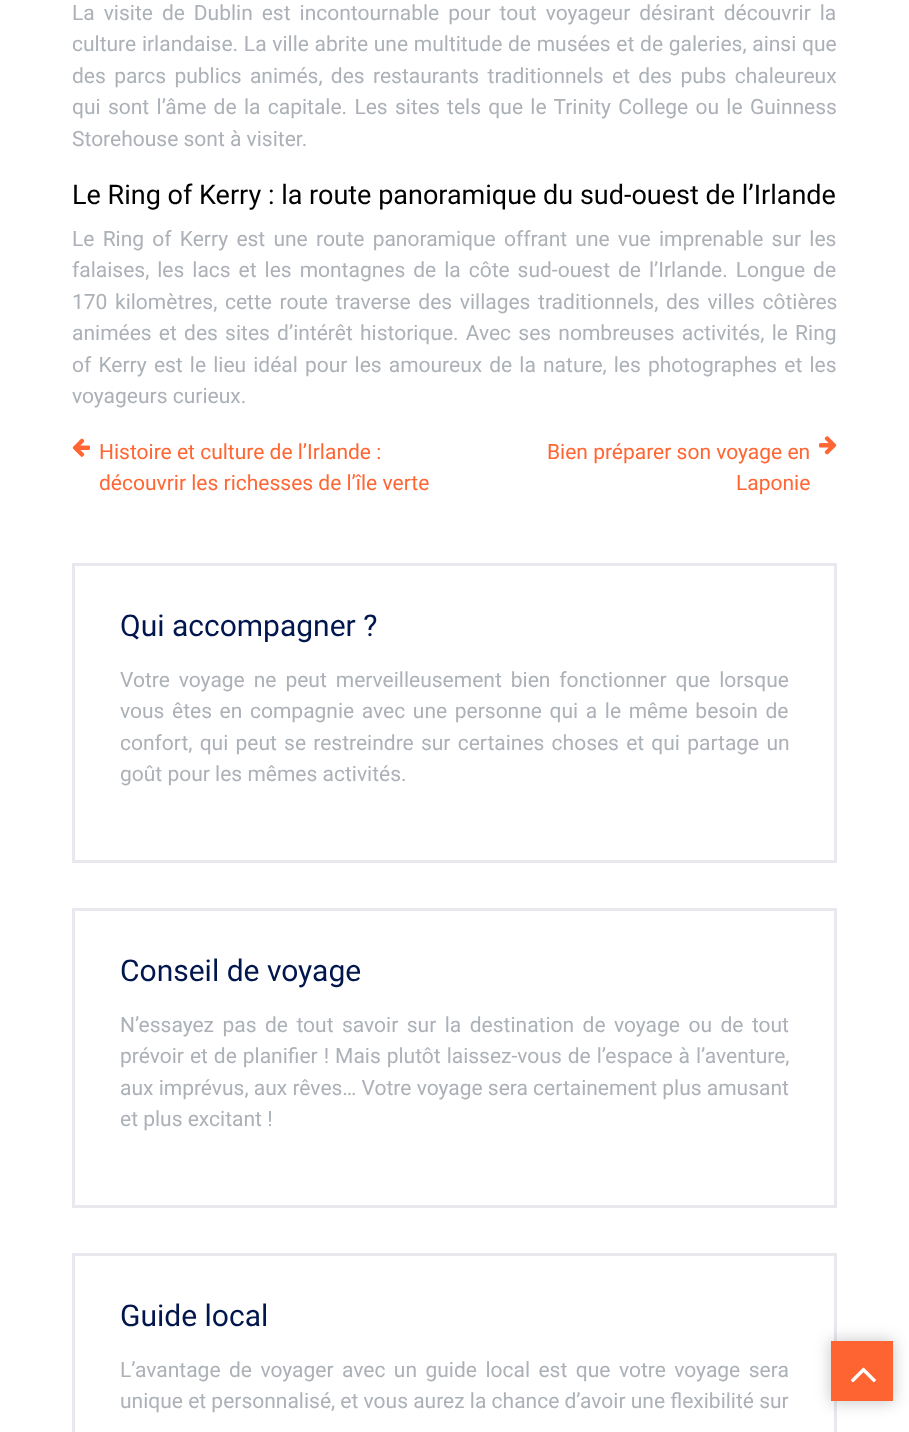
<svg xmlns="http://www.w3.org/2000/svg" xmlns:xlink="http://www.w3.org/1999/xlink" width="909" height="1432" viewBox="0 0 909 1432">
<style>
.cls-1{font:21px Roboto;fill:#acb1b7}
.cls-2{font:27px Roboto;fill:#000000}
.cls-3{font:21px Roboto;fill:#ff6633}
.cls-4{font:30px Roboto;fill:#00164d}
</style>
<rect width="100%" height="100%" fill="#ffffff"/>
<image xlink:href="image0.png" x="72" y="438" width="18" height="19"/>
<image xlink:href="image1.png" x="819" y="436" width="18" height="19"/>
<rect fill="none" stroke="#e7e9ef" stroke-width="3" x="73.5" y="564.5" width="762" height="297"/>
<rect fill="none" stroke="#e7e9ef" stroke-width="3" x="73.5" y="909.5" width="762" height="297"/>
<rect fill="none" stroke="#e7e9ef" stroke-width="3" x="73.5" y="1254.5" width="762" height="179"/>
<rect fill="#000000" fill-opacity="0.2" filter="blur(7.5px)" x="830" y="1340" width="64" height="63"/>
<rect fill="#fe6432" x="831" y="1341" width="62" height="60"/>
<image xlink:href="image2.png" x="851" y="1367" width="25" height="16"/>
<text class="cls-1"><tspan x="72" y="20" word-spacing="3.75">La visite de Dublin est incontournable pour tout voyageur désirant découvrir la</tspan><tspan x="72" y="51" word-spacing="0.5">culture irlandaise. La ville abrite une multitude de musées et de galeries, ainsi que</tspan><tspan x="72" y="83" word-spacing="3.1">des parcs publics animés, des restaurants traditionnels et des pubs chaleureux</tspan><tspan x="72" y="114" word-spacing="2.1">qui sont l’âme de la capitale. Les sites tels que le Trinity College ou le Guinness</tspan><tspan x="72" y="146">Storehouse sont à visiter.</tspan></text>
<text class="cls-2" x="72" y="204">Le Ring of Kerry : la route panoramique du sud-ouest de l’Irlande</text>
<text class="cls-1"><tspan x="72" y="246" word-spacing="3">Le Ring of Kerry est une route panoramique offrant une vue imprenable sur les</tspan><tspan x="72" y="277" word-spacing="2.75">falaises, les lacs et les montagnes de la côte sud-ouest de l’Irlande. Longue de</tspan><tspan x="72" y="309" word-spacing="2.4">170 kilomètres, cette route traverse des villages traditionnels, des villes côtières</tspan><tspan x="72" y="340" word-spacing="2">animées et des sites d’intérêt historique. Avec ses nombreuses activités, le Ring</tspan><tspan x="72" y="372" word-spacing="1.9">of Kerry est le lieu idéal pour les amoureux de la nature, les photographes et les</tspan><tspan x="72" y="403">voyageurs curieux.</tspan></text>
<text class="cls-3"><tspan x="99" y="459">Histoire et culture de l’Irlande :</tspan><tspan x="99" y="490">découvrir les richesses de l’île verte</tspan></text>
<text class="cls-3" x="547" y="459">Bien préparer son voyage en</text>
<text class="cls-3" x="736" y="490">Laponie</text>
<text class="cls-4" x="120" y="636">Qui accompagner ?</text>
<text class="cls-1"><tspan x="120" y="687" word-spacing="3.75">Votre voyage ne peut merveilleusement bien fonctionner que lorsque</tspan><tspan x="120" y="718" word-spacing="2.4">vous êtes en compagnie avec une personne qui a le même besoin de</tspan><tspan x="120" y="750" word-spacing="2">confort, qui peut se restreindre sur certaines choses et qui partage un</tspan><tspan x="120" y="781">goût pour les mêmes activités.</tspan></text>
<text class="cls-4" x="120" y="981">Conseil de voyage</text>
<text class="cls-1"><tspan x="120" y="1032" word-spacing="3.25">N’essayez pas de tout savoir sur la destination de voyage ou de tout</tspan><tspan x="120" y="1063" word-spacing="0.75">prévoir et de planifier ! Mais plutôt laissez-vous de l’espace à l’aventure,</tspan><tspan x="120" y="1095">aux imprévus, aux rêves… Votre voyage sera certainement plus amusant</tspan><tspan x="120" y="1126">et plus excitant !</tspan></text>
<text class="cls-4" x="120" y="1326">Guide local</text>
<text class="cls-1"><tspan x="120" y="1377" word-spacing="3.25">L’avantage de voyager avec un guide local est que votre voyage sera</tspan><tspan x="120" y="1408">unique et personnalisé, et vous aurez la chance d’avoir une flexibilité sur</tspan></text>
</svg>
